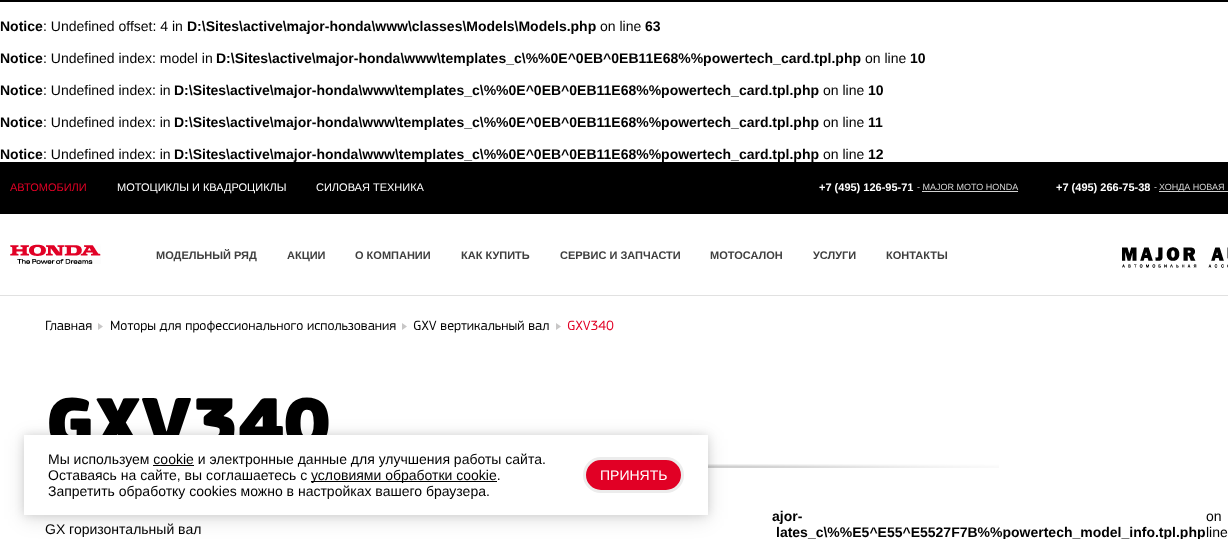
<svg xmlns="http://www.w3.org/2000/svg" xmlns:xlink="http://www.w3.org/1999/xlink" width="1228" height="539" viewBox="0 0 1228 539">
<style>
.cls-1{font:bold 14px Liberation Sans;fill:#000000}
.cls-2{font:14px Liberation Sans;fill:#000000}
.cls-3{font:11px Liberation Sans;fill:#e10025}
.cls-4{font:11px Liberation Sans;fill:#ffffff}
.cls-5{font:bold 11px Liberation Sans;fill:#ffffff}
.cls-6{font:9px Liberation Sans;fill:#d2d2d2}
.cls-7{font:bold 11px Liberation Sans;fill:#3f3f3f}
.cls-8{font:14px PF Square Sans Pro;fill:#000000}
.cls-9{font:14px PF Square Sans Pro;fill:#e10025}
.cls-10{font:800 75px PF Square Sans Pro;fill:#000000}
.cls-11{font:14px Liberation Sans;fill:#ffffff}
</style>
<rect width="100%" height="100%" fill="#ffffff"/>
<rect fill="#000000" x="0" y="0" width="1228" height="2"/>
<rect fill="#000000" x="0" y="162" width="1228" height="52"/>
<rect fill="#d2d2d2" x="922" y="191" width="96" height="1"/>
<rect fill="#d2d2d2" x="1159" y="191" width="69" height="1"/>
<image xlink:href="image2.png" x="708" y="464" width="291" height="4"/>
<rect fill="#000000" fill-opacity="0.12" filter="blur(5px)" x="24" y="435" width="684" height="80"/>
<rect fill="#000000" fill-opacity="0.12" filter="blur(10px)" x="24" y="439" width="684" height="80"/>
<rect fill="#e1e1e1" x="0" y="295" width="1228" height="1"/>
<image xlink:href="image0.png" x="10" y="244" width="91" height="20"/>
<image xlink:href="image1.png" x="1122" y="247" width="106" height="21"/>
<path fill="#c8c7c7" fill-rule="evenodd" d="M98 323V330L103 326.5Z"/>
<path fill="#c8c7c7" fill-rule="evenodd" d="M402 323V330L407 326.5Z"/>
<path fill="#c8c7c7" fill-rule="evenodd" d="M556 323V330L561 326.5Z"/>
<text class="cls-1" x="0" y="31">Notice</text>
<text class="cls-2" x="43" y="31">: Undefined offset: 4 in</text>
<text class="cls-1" x="187" y="31">D:\Sites\active\major-honda\www\classes\Models\Models.php</text>
<text class="cls-2" x="600" y="31">on line</text>
<text class="cls-1" x="645" y="31">63</text>
<text class="cls-1" x="0" y="63">Notice</text>
<text class="cls-2" x="43" y="63">: Undefined index: model in</text>
<text class="cls-1" x="216" y="63">D:\Sites\active\major-honda\www\templates_c\%%0E^0EB^0EB11E68%%powertech_card.tpl.php</text>
<text class="cls-2" x="865" y="63">on line</text>
<text class="cls-1" x="910" y="63">10</text>
<text class="cls-1" x="0" y="95">Notice</text>
<text class="cls-2" x="43" y="95">: Undefined index: in</text>
<text class="cls-1" x="174" y="95">D:\Sites\active\major-honda\www\templates_c\%%0E^0EB^0EB11E68%%powertech_card.tpl.php</text>
<text class="cls-2" x="823" y="95">on line</text>
<text class="cls-1" x="868" y="95">10</text>
<text class="cls-1" x="0" y="127">Notice</text>
<text class="cls-2" x="43" y="127">: Undefined index: in</text>
<text class="cls-1" x="174" y="127">D:\Sites\active\major-honda\www\templates_c\%%0E^0EB^0EB11E68%%powertech_card.tpl.php</text>
<text class="cls-2" x="823" y="127">on line</text>
<text class="cls-1" x="868" y="127">11</text>
<text class="cls-1" x="0" y="159">Notice</text>
<text class="cls-2" x="43" y="159">: Undefined index: in</text>
<text class="cls-1" x="174" y="159">D:\Sites\active\major-honda\www\templates_c\%%0E^0EB^0EB11E68%%powertech_card.tpl.php</text>
<text class="cls-2" x="823" y="159">on line</text>
<text class="cls-1" x="868" y="159">12</text>
<text class="cls-3" x="10" y="191">АВТОМОБИЛИ</text>
<text class="cls-4" x="117" y="191">МОТОЦИКЛЫ И КВАДРОЦИКЛЫ</text>
<text class="cls-4" x="316" y="191">СИЛОВАЯ ТЕХНИКА</text>
<text class="cls-5" x="819" y="191">+7 (495) 126-95-71</text>
<text class="cls-6" x="917" y="190">- MAJOR MOTO HONDA</text>
<text class="cls-5" x="1056" y="191">+7 (495) 266-75-38</text>
<text class="cls-6" x="1154" y="190">-</text>
<text class="cls-6" x="1159" y="190">ХОНДА НОВАЯ</text>
<text class="cls-7" x="156" y="259">МОДЕЛЬНЫЙ РЯД</text>
<text class="cls-7" x="287" y="259">АКЦИИ</text>
<text class="cls-7" x="355" y="259">О КОМПАНИИ</text>
<text class="cls-7" x="461" y="259">КАК КУПИТЬ</text>
<text class="cls-7" x="560" y="259">СЕРВИС И ЗАПЧАСТИ</text>
<text class="cls-7" x="710" y="259">МОТОСАЛОН</text>
<text class="cls-7" x="813" y="259">УСЛУГИ</text>
<text class="cls-7" x="886" y="259">КОНТАКТЫ</text>
<text class="cls-8" x="45" y="330">Главная</text>
<text class="cls-8" x="110" y="330">Моторы для профессионального использования</text>
<text class="cls-8" x="413" y="330">GXV вертикальный вал</text>
<text class="cls-9" x="567" y="330">GXV340</text>
<text class="cls-10" x="45" y="448">GXV340</text>
<rect fill="#ffffff" x="24" y="435" width="684" height="80"/>
<rect fill="#e10025" stroke="#ececec" stroke-width="3" x="584.5" y="458.5" width="98" height="33" rx="16.5"/>
<text class="cls-11" x="600" y="480">ПРИНЯТЬ</text>
<text class="cls-2" x="48" y="496">Запретить обработку cookies можно в настройках вашего браузера.</text>
<rect fill="#000000" x="311" y="481" width="186" height="1"/>
<text class="cls-2" x="311" y="480">условиями обработки cookie.</text>
<text class="cls-2" x="48" y="480">Оставаясь на сайте, вы соглашаетесь с</text>
<rect fill="#000000" x="153" y="465" width="41" height="1"/>
<text class="cls-2" x="48" y="464">Мы используем cookie и электронные данные для улучшения работы сайта.</text>
<text class="cls-2" x="45" y="534">GX горизонтальный вал</text>
<text class="cls-1" x="772" y="521">ajor-</text>
<text class="cls-1" x="776" y="537">lates_c\%%E5^E55^E5527F7B%%powertech_model_info.tpl.php</text>
<text class="cls-2"><tspan x="1206" y="521">on</tspan><tspan x="1206" y="537">line</tspan></text>
</svg>
